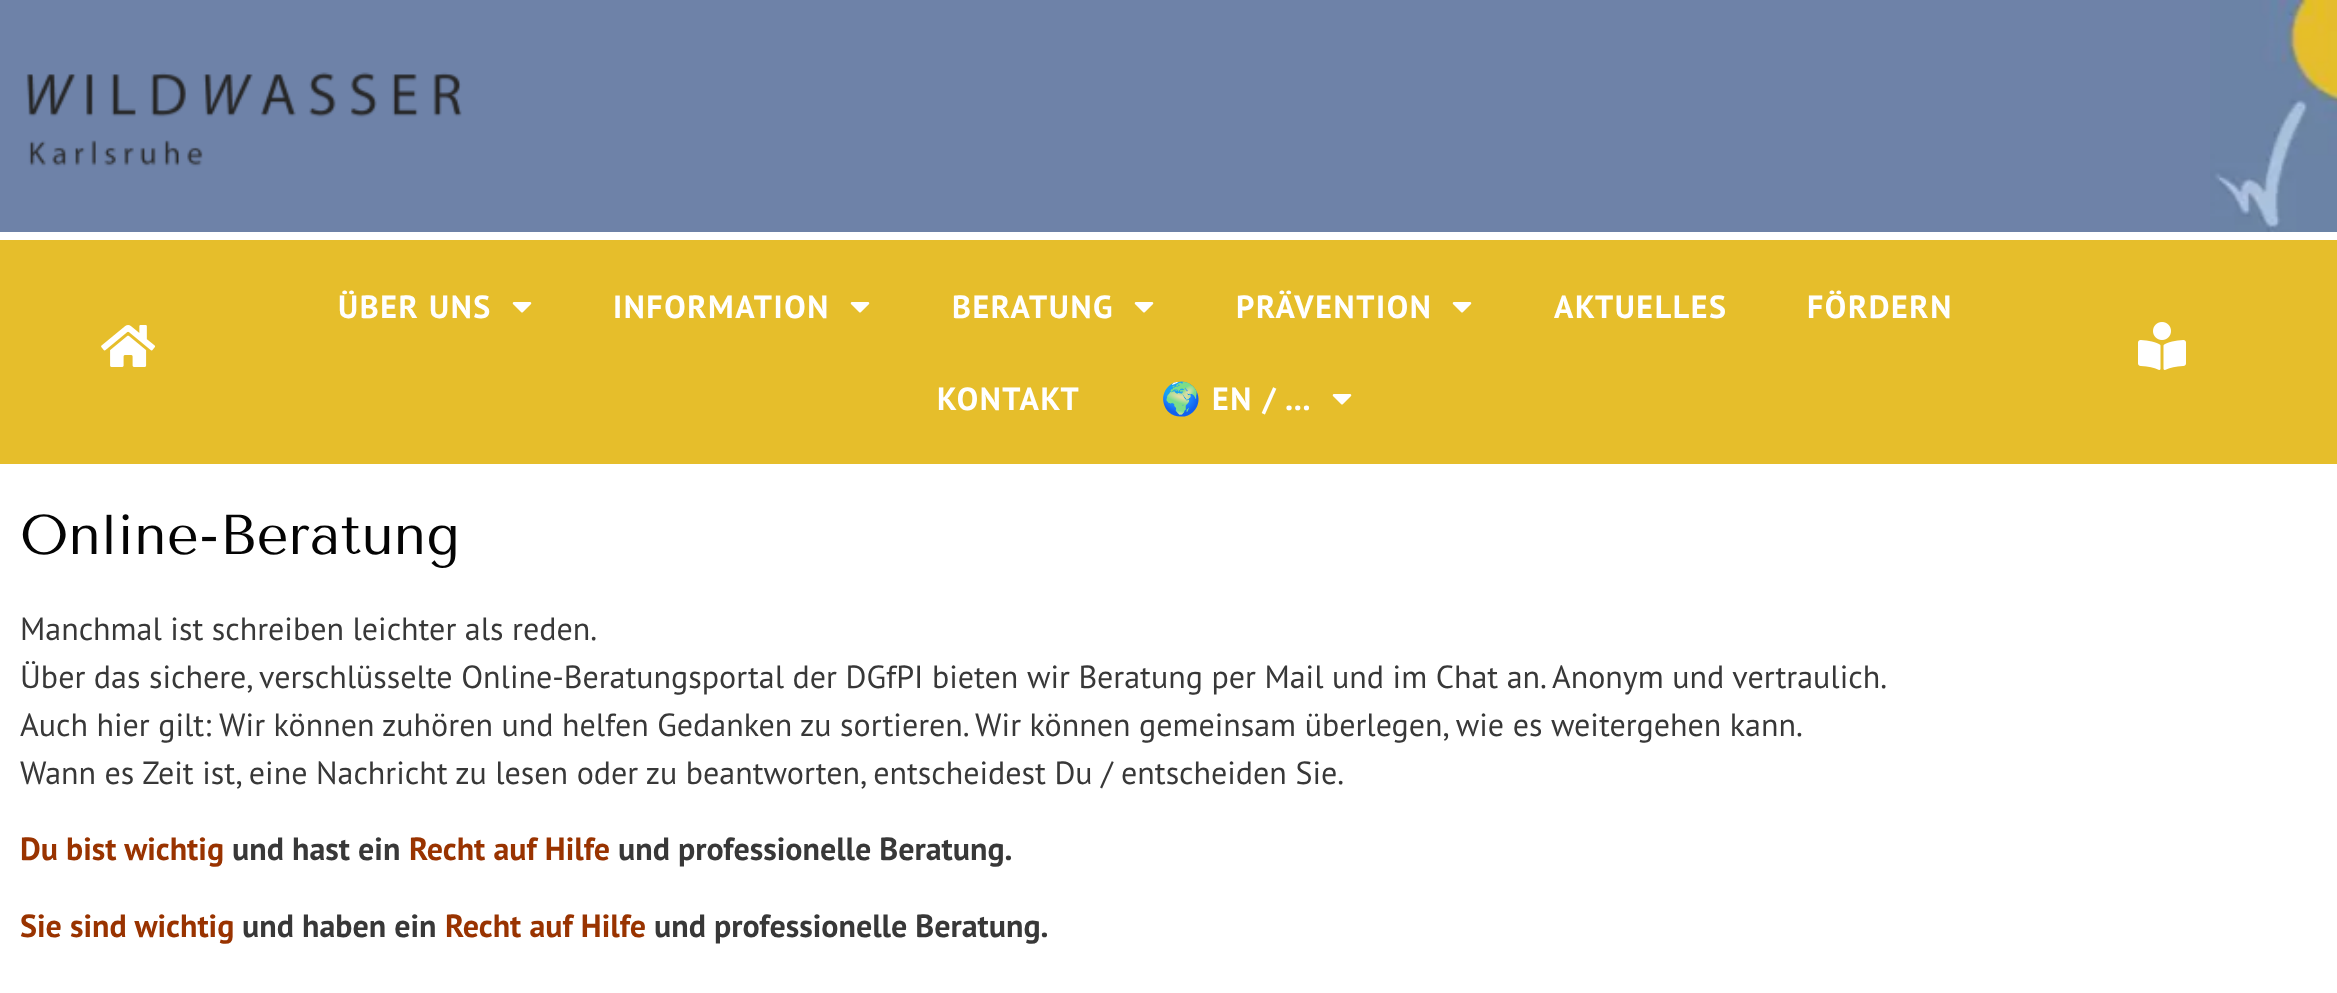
<svg xmlns="http://www.w3.org/2000/svg" xmlns:xlink="http://www.w3.org/1999/xlink" width="2337" height="993" viewBox="0 0 2337 993">
<style>
.cls-1{font:bold 32px PT Sans;letter-spacing:1.6px;fill:#ffffff}
.cls-2{font:bold 32px Noto Color Emoji;letter-spacing:1.6px;fill:#ffffff}
.cls-3{font:56px Tenor Sans;fill:#040404}
.cls-4{font:32px PT Sans;fill:#383838}
.cls-5{font:bold 32px PT Sans;fill:#993300}
.cls-6{font:bold 32px PT Sans;fill:#383838}
</style>
<rect width="100%" height="100%" fill="#ffffff"/>
<rect fill="#6e82a8" x="0" y="0" width="2210" height="232"/>
<image xlink:href="image0.png" x="26" y="72" width="436" height="95"/>
<image xlink:href="image1.png" x="2210" y="0" width="127" height="232"/>
<rect fill="#e6be2b" x="0" y="240" width="2337" height="224"/>
<image xlink:href="image2.png" x="101" y="325" width="55" height="42"/>
<image xlink:href="image3.png" x="512" y="302" width="20" height="11"/>
<image xlink:href="image3.png" x="850" y="302" width="20" height="11"/>
<image xlink:href="image3.png" x="1134" y="302" width="20" height="11"/>
<image xlink:href="image3.png" x="1452" y="302" width="20" height="11"/>
<image xlink:href="image3.png" x="1332" y="394" width="20" height="11"/>
<image xlink:href="image4.png" x="2138" y="322" width="48" height="48"/>
<text class="cls-1" x="338" y="318">ÜBER UNS</text>
<text class="cls-1" x="613" y="318">INFORMATION</text>
<text class="cls-1" x="952" y="318">BERATUNG</text>
<text class="cls-1" x="1236" y="318">PRÄVENTION</text>
<text class="cls-1" x="1554" y="318">AKTUELLES</text>
<text class="cls-1" x="1807" y="318">FÖRDERN</text>
<text class="cls-1" x="937" y="410">KONTAKT</text>
<text class="cls-2" x="1161" y="410">🌍</text>
<text class="cls-1" x="1212" y="410">EN / …</text>
<text class="cls-3" x="20" y="554">Online-Beratung</text>
<text class="cls-4"><tspan x="20" y="640">Manchmal ist schreiben leichter als reden.</tspan><tspan x="20" y="688">Über das sichere, verschlüsselte Online-Beratungsportal der DGfPI bieten wir Beratung per Mail und im Chat an. Anonym und vertraulich.</tspan><tspan x="20" y="736">Auch hier gilt: Wir können zuhören und helfen Gedanken zu sortieren. Wir können gemeinsam überlegen, wie es weitergehen kann.</tspan><tspan x="20" y="784">Wann es Zeit ist, eine Nachricht zu lesen oder zu beantworten, entscheidest Du / entscheiden Sie.</tspan></text>
<text class="cls-5" x="20" y="860">Du bist wichtig</text>
<text class="cls-6" x="232" y="860">und hast ein</text>
<text class="cls-5" x="409" y="860">Recht auf Hilfe</text>
<text class="cls-6" x="618" y="860">und professionelle Beratung.</text>
<text class="cls-5" x="20" y="937">Sie sind wichtig</text>
<text class="cls-6" x="242" y="937">und haben ein</text>
<text class="cls-5" x="445" y="937">Recht auf Hilfe</text>
<text class="cls-6" x="654" y="937">und professionelle Beratung.</text>
</svg>
